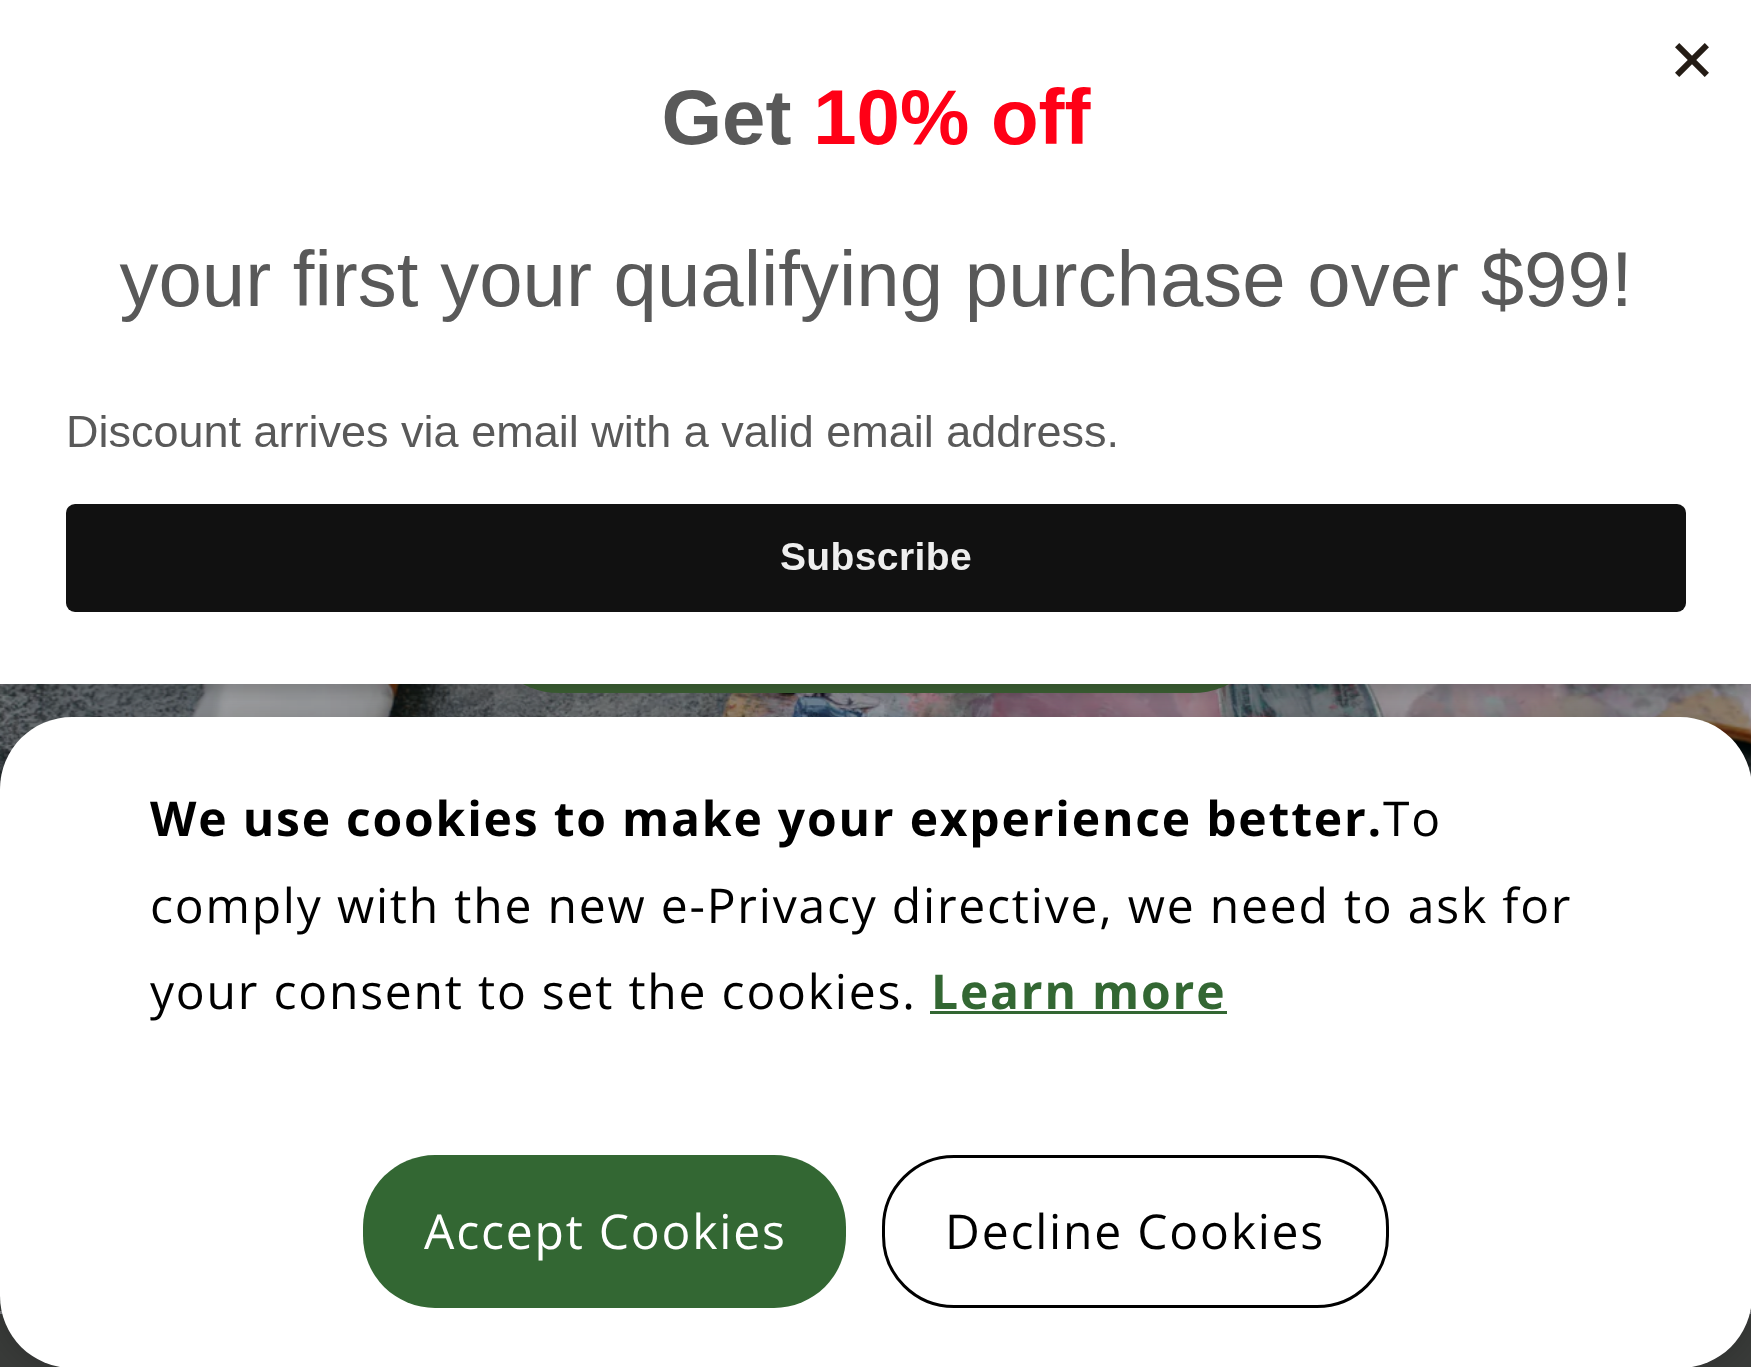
<svg xmlns="http://www.w3.org/2000/svg" xmlns:xlink="http://www.w3.org/1999/xlink" width="1751" height="1367" viewBox="0 0 1751 1367">
<style>
.cls-1{font:bold 48px Open Sans;letter-spacing:1.8px;fill:#000000}
.cls-2{font:48px Open Sans;letter-spacing:1.8px;fill:#000000}
.cls-3{font:bold 48px Open Sans;letter-spacing:1.8px;fill:#336733}
.cls-4{font:48px Open Sans;letter-spacing:1.8px;fill:#ffffff}
</style>
<rect width="100%" height="100%" fill="#ffffff"/>
<image xlink:href="image1.png" x="0" y="684" width="1751" height="105"/>
<rect fill="#406537" stroke="#406537" stroke-width="3" x="481.5" y="535.5" width="789" height="156" rx="78"/>
<rect fill="#393b39" x="0" y="1296" width="1751" height="71"/>
<rect fill="#7e7e83" x="0" y="1311" width="1751" height="3"/>
<rect fill="#000000" fill-opacity="0.2" filter="blur(15px)" x="0" y="717" width="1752" height="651" rx="72"/>
<rect fill="#ffffff" x="0" y="717" width="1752" height="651" rx="72"/>
<rect fill="#000000" fill-opacity="0.2" filter="blur(9px)" x="0" y="9" width="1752" height="684"/>
<rect fill="#ffffff" x="0" y="0" width="1751" height="684"/>
<image xlink:href="image0.png" x="66" y="43" width="1643" height="569"/>
<rect fill="#336733" x="930" y="1011" width="297" height="3"/>
<rect fill="#336733" x="363" y="1155" width="483" height="153" rx="72"/>
<rect fill="none" stroke="#000000" stroke-width="3" x="883.5" y="1156.5" width="504" height="150" rx="70.5"/>
<text class="cls-1" x="150" y="836">We use cookies to make your experience better.</text>
<text class="cls-2" x="1383" y="836">To</text>
<text class="cls-2"><tspan x="150" y="923">comply with the new e-Privacy directive, we need to ask for</tspan><tspan x="150" y="1009">your consent to set the cookies.</tspan></text>
<text class="cls-3" x="931" y="1009">Learn more</text>
<text class="cls-4" x="424" y="1249">Accept Cookies</text>
<text class="cls-2" x="945" y="1249">Decline Cookies</text>
</svg>
